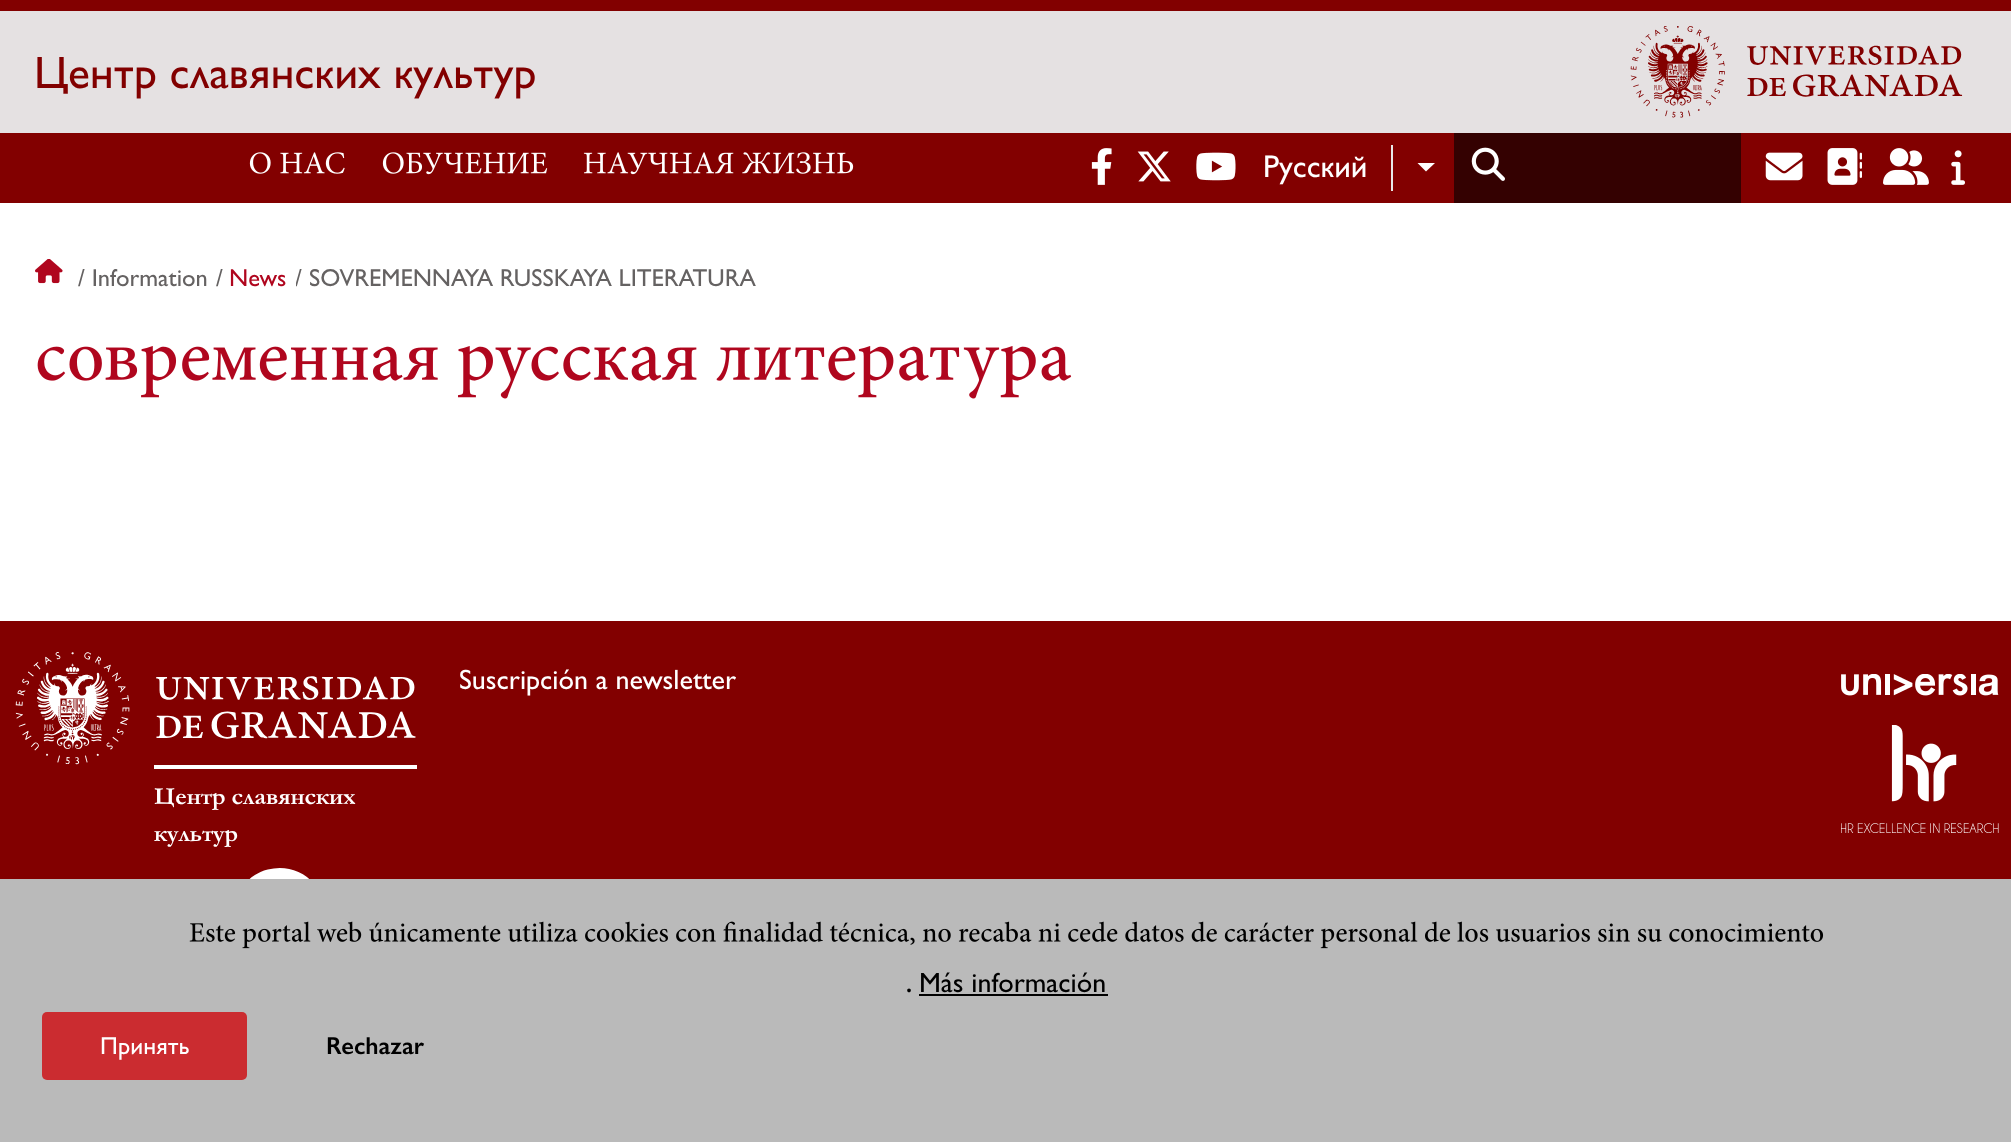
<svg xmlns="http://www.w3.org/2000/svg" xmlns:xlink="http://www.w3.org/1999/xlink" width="2011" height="1142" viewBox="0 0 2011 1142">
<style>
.cls-1{font:45.5px Gill Sans;fill:#820000}
.cls-2{font:31.5px Gill Sans;fill:#ffffff}
.cls-3{font:24.5px Gill Sans;fill:#656262}
.cls-4{font:24.5px Gill Sans;fill:#b0061e}
.cls-5{font:bold 24.5px Garamond;fill:#ffffff}
.cls-6{font:28px Gill Sans;fill:#ffffff}
.cls-7{font:600 24.5px Gill Sans;fill:#000000}
.cls-8{font:28px Gill Sans;fill:#000000}
.cls-9{font:24.5px Gill Sans;fill:#ffffff}
</style>
<defs>
<clipPath id="clip1"><rect x="296" y="259" width="474" height="35"/></clipPath>
</defs>
<rect width="100%" height="100%" fill="#ffffff"/>
<rect fill="#820000" x="0" y="0" width="2011" height="11"/>
<rect fill="#820000" x="0" y="133" width="2011" height="70"/>
<rect fill="#e5e1e2" x="0" y="11" width="2011" height="122"/>
<image xlink:href="image0.png" x="1630" y="26" width="333" height="92"/>
<image xlink:href="image1.png" x="249" y="152" width="96" height="22"/>
<image xlink:href="image2.png" x="382" y="152" width="166" height="23"/>
<image xlink:href="image3.png" x="583" y="152" width="271" height="23"/>
<image xlink:href="image4.png" x="1091" y="148" width="21" height="37"/>
<image xlink:href="image5.png" x="1137" y="151" width="34" height="31"/>
<image xlink:href="image6.png" x="1196" y="152" width="40" height="29"/>
<rect fill="#e8e8e8" x="1391" y="145" width="2" height="46"/>
<path fill="#ffffff" d="M1417.5 163H1435L1426 171.5Z"/>
<rect fill="#340101" x="1454" y="133" width="287" height="70"/>
<image xlink:href="image7.png" x="1471" y="147" width="34" height="34"/>
<image xlink:href="image8.png" x="1765" y="152" width="38" height="29"/>
<image xlink:href="image9.png" x="1827" y="148" width="35" height="37"/>
<image xlink:href="image10.png" x="1883" y="148" width="46" height="37"/>
<image xlink:href="image11.png" x="1951" y="150" width="14" height="35"/>
<image xlink:href="image12.png" x="35" y="259" width="28" height="25"/>
<image xlink:href="image13.png" x="37" y="346" width="1035" height="53"/>
<rect fill="#820000" x="0" y="621" width="2011" height="258"/>
<image xlink:href="image14.png" x="15" y="652" width="401" height="113"/>
<rect fill="#ffffff" x="154" y="765" width="263" height="4"/>
<image xlink:href="image15.png" x="249" y="868" width="60" height="11"/>
<image xlink:href="image16.png" x="1841" y="674" width="158" height="22"/>
<image xlink:href="image17.png" x="1841" y="725" width="158" height="108"/>
<rect fill="#bababa" x="0" y="879" width="2011" height="263"/>
<image xlink:href="image18.png" x="189" y="921" width="1635" height="28"/>
<rect fill="#000000" x="919" y="994" width="189" height="2"/>
<rect fill="#cb2c30" x="42" y="1012" width="205" height="68" rx="5"/>
<text class="cls-1" x="34" y="88">Центр славянских культур</text>
<text class="cls-2" x="1263" y="177">Русский</text>
<text class="cls-3" x="78" y="286">/ Information</text>
<text class="cls-3" x="216" y="286">/</text>
<text class="cls-4" x="229" y="286">News</text>
<g clip-path="url(#clip1)">
<text class="cls-3" x="295" y="286">/</text>
</g>
<text class="cls-3" x="309" y="286">SOVREMENNAYA RUSSKAYA LITERATURA</text>
<text class="cls-5"><tspan x="154" y="804">Центр славянских</tspan><tspan x="154" y="841">культур</tspan></text>
<text class="cls-6" x="459" y="689">Suscripción a newsletter</text>
<text class="cls-7" x="906" y="992">.</text>
<text class="cls-8" x="919" y="992">Más información</text>
<text class="cls-9" x="100" y="1054">Принять</text>
<text class="cls-7" x="326" y="1054">Rechazar</text>
</svg>
